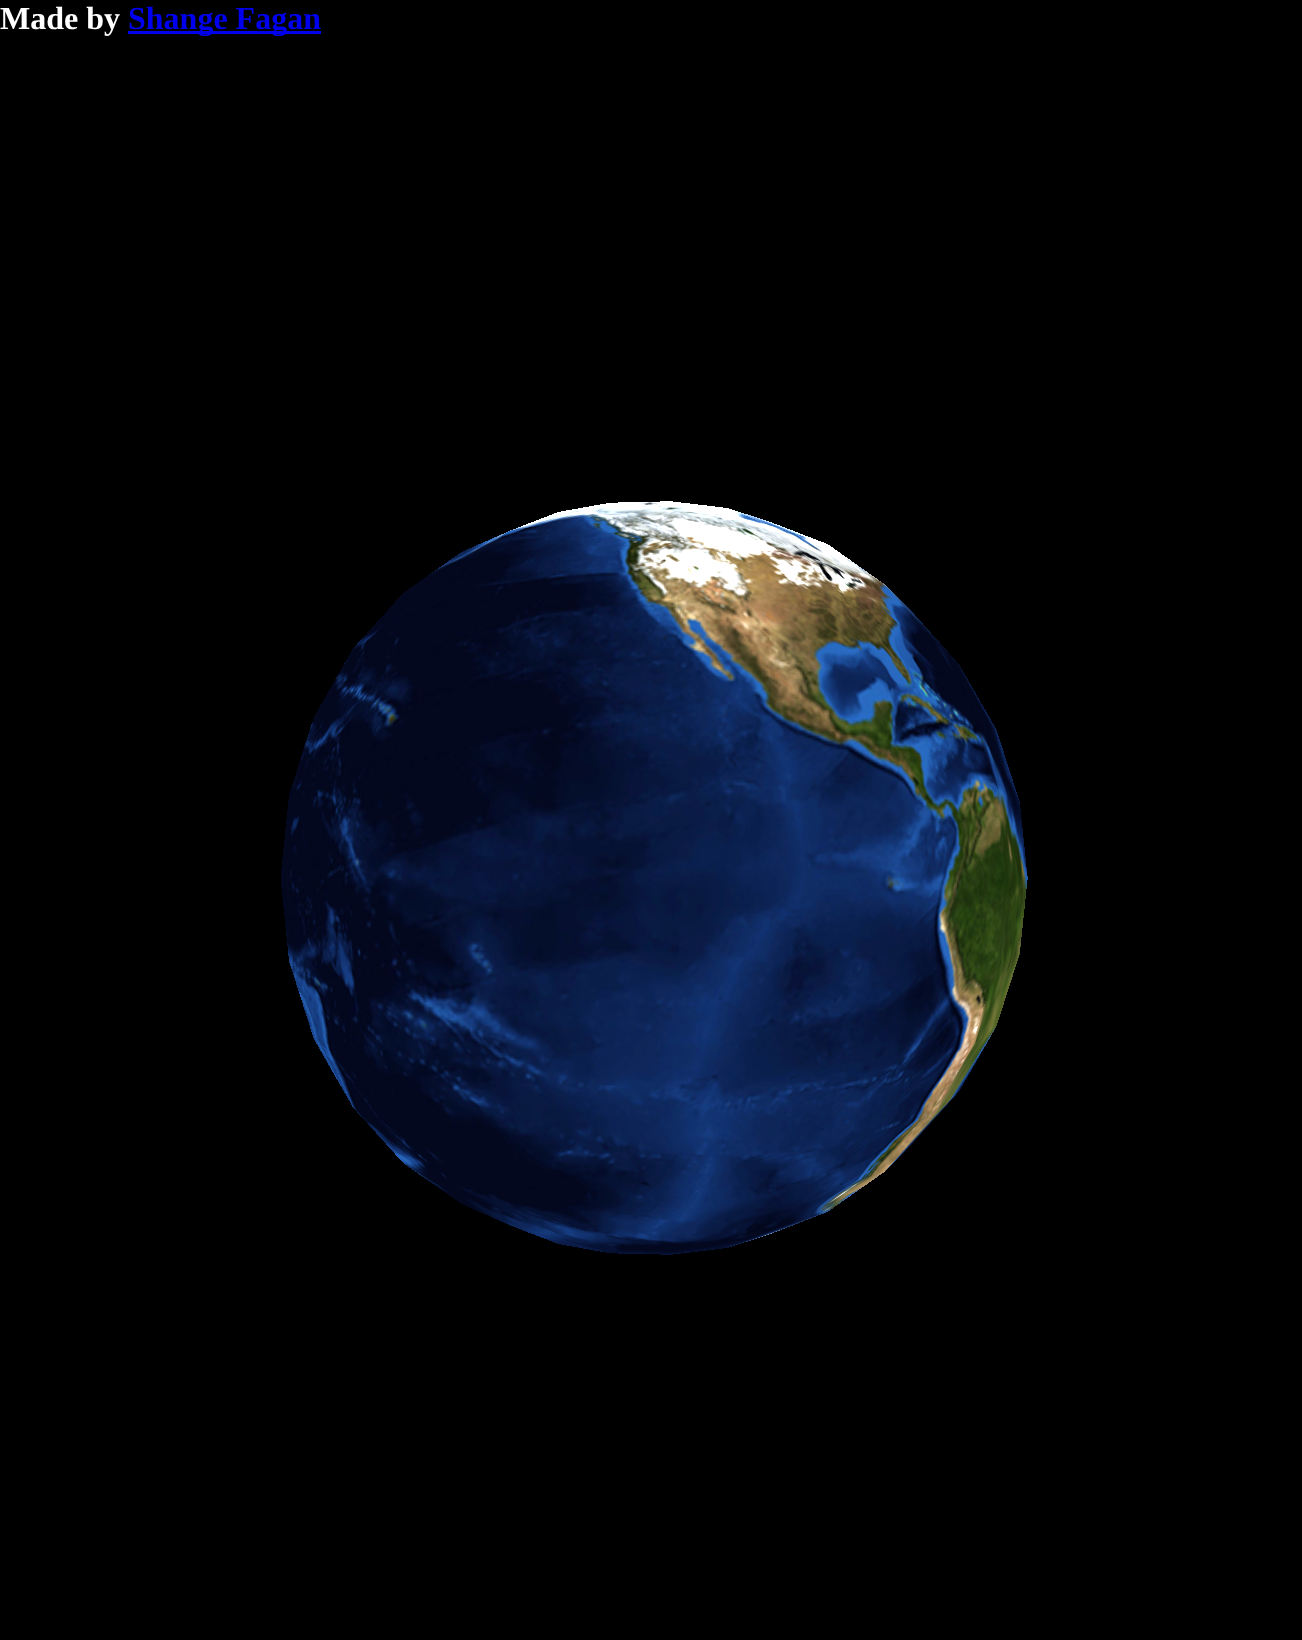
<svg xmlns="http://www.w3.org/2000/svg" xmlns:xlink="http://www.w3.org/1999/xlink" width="1302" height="1640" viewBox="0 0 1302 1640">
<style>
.cls-1{font:bold 32px Liberation Serif;fill:#ffffff}
.cls-2{font:bold 32px Liberation Serif;fill:#0000ee}
</style>
<rect width="100%" height="100%" fill="#000000"/>
<rect fill="#0000ee" x="128" y="31" width="193" height="3"/>
<image xlink:href="image0.png" x="281" y="501" width="747" height="754"/>
<text class="cls-1" x="0" y="29">Made by</text>
<text class="cls-2" x="128" y="29">Shange Fagan</text>
</svg>
